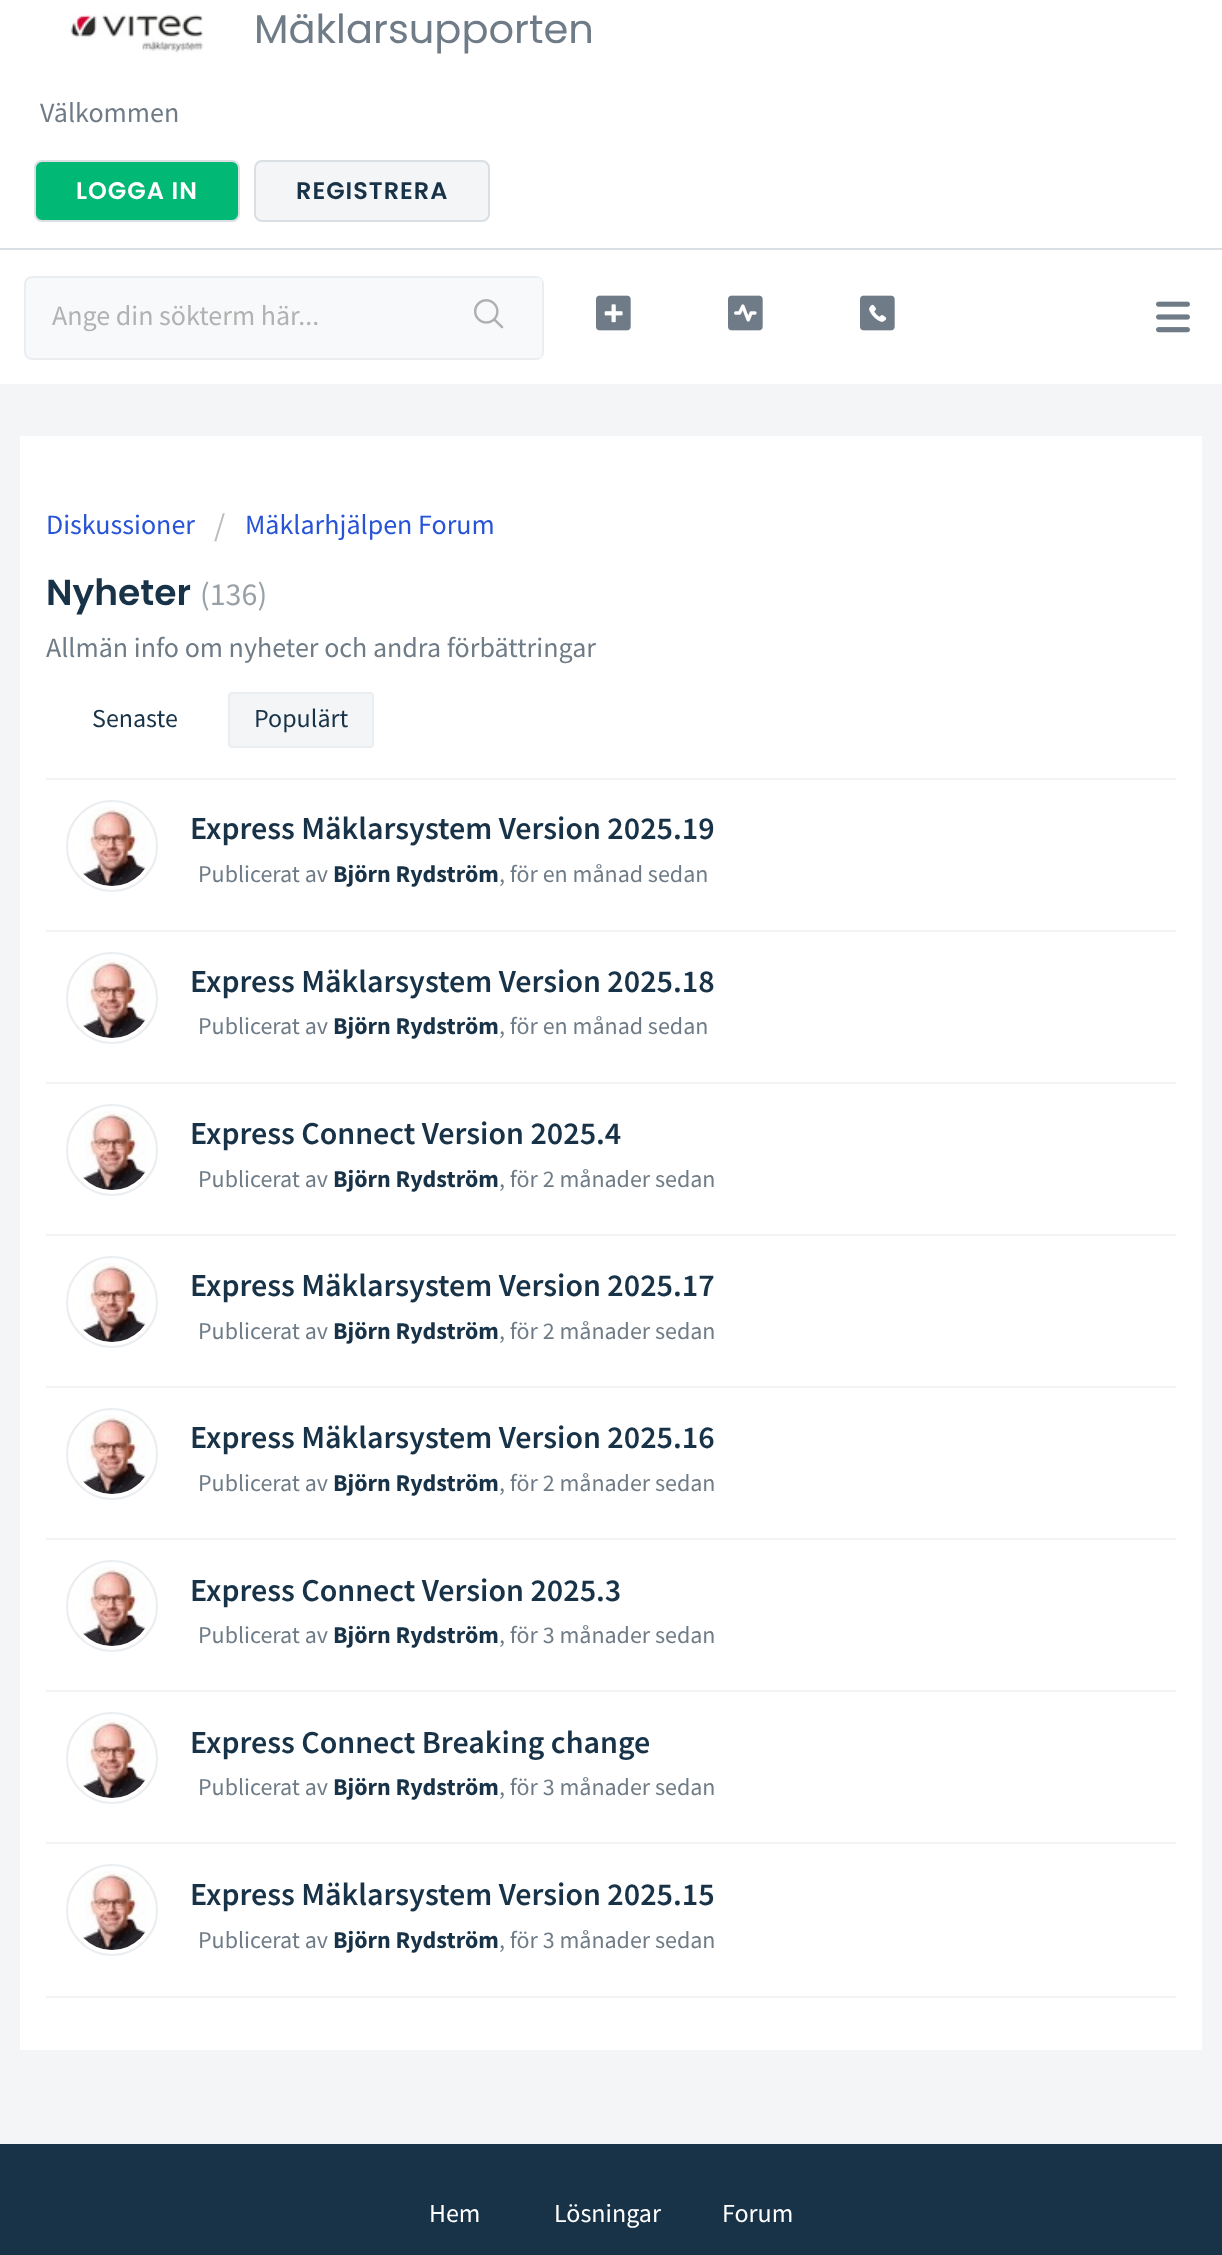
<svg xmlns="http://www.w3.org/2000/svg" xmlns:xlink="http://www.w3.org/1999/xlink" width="1222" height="2255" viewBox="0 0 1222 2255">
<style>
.cls-1{font:40px Poppins;fill:#6f7c87}
.cls-2{font:28px Source Sans Pro;fill:#6f7c87}
.cls-3{font:600 24px Poppins;letter-spacing:1px;fill:#ffffff}
.cls-4{font:600 24px Poppins;letter-spacing:1px;fill:#183247}
.cls-5{font:28px Source Sans Pro;fill:#b2b2b2}
.cls-6{font:28px Source Sans Pro;fill:#2753d7}
.cls-7{font:32px Source Sans Pro;fill:#bbbbbb}
.cls-8{font:600 36px Poppins;fill:#183247}
.cls-9{font:32px Source Sans Pro;fill:#9aa1a6}
.cls-10{font:26px Source Sans Pro;fill:#183247}
.cls-11{font:600 32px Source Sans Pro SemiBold;fill:#183247}
.cls-12{font:24px Source Sans Pro;fill:#6f7c87}
.cls-13{font:bold 24px Source Sans Pro;fill:#183247}
.cls-14{font:26px Source Sans Pro;fill:#ffffff}
</style>
<rect width="100%" height="100%" fill="#f3f5f7"/>
<rect fill="#ffffff" x="0" y="0" width="1222" height="248"/>
<rect fill="#dadfe3" x="0" y="248" width="1222" height="2"/>
<image xlink:href="image0.png" x="70" y="14" width="134" height="39"/>
<rect fill="#02b875" stroke="#dadfe3" stroke-width="2" x="35" y="161" width="204" height="60" rx="7"/>
<rect fill="#f3f5f7" stroke="#dadfe3" stroke-width="2" x="255" y="161" width="234" height="60" rx="7"/>
<rect fill="#ffffff" x="0" y="250" width="1222" height="134"/>
<image xlink:href="image1.png" x="1156" y="301" width="34" height="32"/>
<rect fill="#f8f9fa" stroke="#ebeef0" stroke-width="2" x="25" y="277" width="518" height="82" rx="7"/>
<rect fill="#f8f9fa" x="438" y="278" width="104" height="80" rx="4"/>
<image xlink:href="image2.png" x="474" y="299" width="30" height="30"/>
<image xlink:href="image3.png" x="596" y="295" width="35" height="36"/>
<image xlink:href="image4.png" x="728" y="295" width="35" height="36"/>
<image xlink:href="image5.png" x="860" y="295" width="35" height="36"/>
<rect fill="#ffffff" x="20" y="436" width="1182" height="1614"/>
<rect fill="#f3f5f7" stroke="#ebeef0" stroke-width="2" x="229" y="693" width="144" height="54" rx="3"/>
<rect fill="#f3f3f3" x="46" y="1996" width="1130" height="2"/>
<rect fill="#f3f3f3" x="46" y="778" width="1130" height="2"/>
<circle fill="none" stroke="#ebeef0" stroke-width="2" cx="112" cy="846" r="45"/>
<image xlink:href="image6.png" x="72" y="807" width="77" height="79"/>
<rect fill="#f3f3f3" x="46" y="930" width="1130" height="2"/>
<circle fill="none" stroke="#ebeef0" stroke-width="2" cx="112" cy="998" r="45"/>
<image xlink:href="image7.png" x="72" y="959" width="77" height="79"/>
<rect fill="#f3f3f3" x="46" y="1082" width="1130" height="2"/>
<circle fill="none" stroke="#ebeef0" stroke-width="2" cx="112" cy="1150" r="45"/>
<image xlink:href="image6.png" x="72" y="1111" width="77" height="79"/>
<rect fill="#f3f3f3" x="46" y="1234" width="1130" height="2"/>
<circle fill="none" stroke="#ebeef0" stroke-width="2" cx="112" cy="1302" r="45"/>
<image xlink:href="image6.png" x="72" y="1263" width="77" height="79"/>
<rect fill="#f3f3f3" x="46" y="1386" width="1130" height="2"/>
<circle fill="none" stroke="#ebeef0" stroke-width="2" cx="112" cy="1454" r="45"/>
<image xlink:href="image8.png" x="72" y="1415" width="77" height="79"/>
<rect fill="#f3f3f3" x="46" y="1538" width="1130" height="2"/>
<circle fill="none" stroke="#ebeef0" stroke-width="2" cx="112" cy="1606" r="45"/>
<image xlink:href="image6.png" x="72" y="1567" width="77" height="79"/>
<rect fill="#f3f3f3" x="46" y="1690" width="1130" height="2"/>
<circle fill="none" stroke="#ebeef0" stroke-width="2" cx="112" cy="1758" r="45"/>
<image xlink:href="image9.png" x="72" y="1719" width="77" height="79"/>
<rect fill="#f3f3f3" x="46" y="1842" width="1130" height="2"/>
<circle fill="none" stroke="#ebeef0" stroke-width="2" cx="112" cy="1910" r="45"/>
<image xlink:href="image6.png" x="72" y="1871" width="77" height="79"/>
<rect fill="#183247" x="0" y="2144" width="1222" height="111"/>
<text class="cls-1" x="254" y="43">Mäklarsupporten</text>
<text class="cls-2" x="40" y="122">Välkommen</text>
<text class="cls-3" x="76" y="199">LOGGA IN</text>
<text class="cls-4" x="296" y="199">REGISTRERA</text>
<text class="cls-5" x="52" y="325">Ange din sökterm här...</text>
<text class="cls-6" x="46" y="534">Diskussioner</text>
<text class="cls-7" x="214" y="536">/</text>
<text class="cls-6" x="245" y="534">Mäklarhjälpen Forum</text>
<text class="cls-8" x="46" y="605">Nyheter</text>
<text class="cls-9" x="200" y="605">(136)</text>
<text class="cls-2" x="46" y="657">Allmän info om nyheter och andra förbättringar</text>
<text class="cls-10" x="92" y="727">Senaste</text>
<text class="cls-10" x="254" y="727">Populärt</text>
<text class="cls-11" x="190" y="839">Express Mäklarsystem Version 2025.19</text>
<text class="cls-12" x="198" y="882">Publicerat av</text>
<text class="cls-13" x="333" y="882">Björn Rydström</text>
<text class="cls-12" x="499" y="882">, för en månad sedan</text>
<text class="cls-11" x="190" y="992">Express Mäklarsystem Version 2025.18</text>
<text class="cls-12" x="198" y="1034">Publicerat av</text>
<text class="cls-13" x="333" y="1034">Björn Rydström</text>
<text class="cls-12" x="499" y="1034">, för en månad sedan</text>
<text class="cls-11" x="190" y="1144">Express Connect Version 2025.4</text>
<text class="cls-12" x="198" y="1187">Publicerat av</text>
<text class="cls-13" x="333" y="1187">Björn Rydström</text>
<text class="cls-12" x="499" y="1187">, för 2 månader sedan</text>
<text class="cls-11" x="190" y="1296">Express Mäklarsystem Version 2025.17</text>
<text class="cls-12" x="198" y="1339">Publicerat av</text>
<text class="cls-13" x="333" y="1339">Björn Rydström</text>
<text class="cls-12" x="499" y="1339">, för 2 månader sedan</text>
<text class="cls-11" x="190" y="1448">Express Mäklarsystem Version 2025.16</text>
<text class="cls-12" x="198" y="1491">Publicerat av</text>
<text class="cls-13" x="333" y="1491">Björn Rydström</text>
<text class="cls-12" x="499" y="1491">, för 2 månader sedan</text>
<text class="cls-11" x="190" y="1601">Express Connect Version 2025.3</text>
<text class="cls-12" x="198" y="1643">Publicerat av</text>
<text class="cls-13" x="333" y="1643">Björn Rydström</text>
<text class="cls-12" x="499" y="1643">, för 3 månader sedan</text>
<text class="cls-11" x="190" y="1753">Express Connect Breaking change</text>
<text class="cls-12" x="198" y="1795">Publicerat av</text>
<text class="cls-13" x="333" y="1795">Björn Rydström</text>
<text class="cls-12" x="499" y="1795">, för 3 månader sedan</text>
<text class="cls-11" x="190" y="1905">Express Mäklarsystem Version 2025.15</text>
<text class="cls-12" x="198" y="1948">Publicerat av</text>
<text class="cls-13" x="333" y="1948">Björn Rydström</text>
<text class="cls-12" x="499" y="1948">, för 3 månader sedan</text>
<text class="cls-14" x="429" y="2222">Hem</text>
<text class="cls-14" x="554" y="2222">Lösningar</text>
<text class="cls-14" x="722" y="2222">Forum</text>
</svg>
